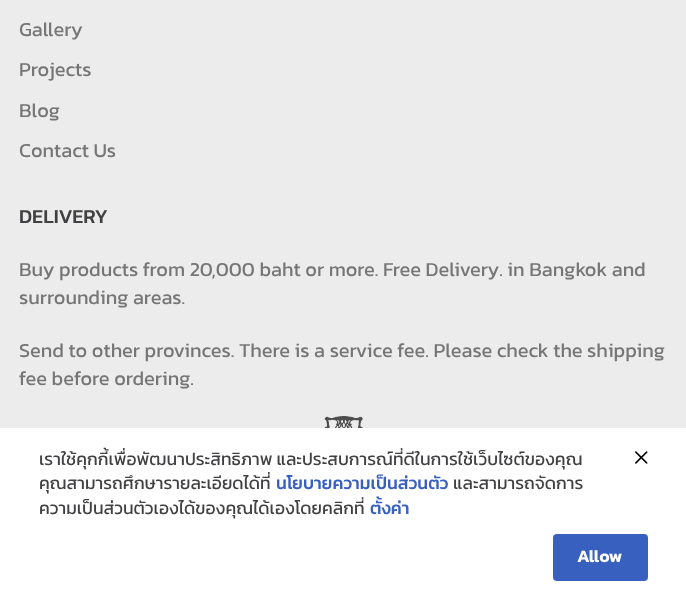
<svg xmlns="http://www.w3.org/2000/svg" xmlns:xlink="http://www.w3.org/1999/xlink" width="686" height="601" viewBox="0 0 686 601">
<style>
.cls-1{font:20px Kanit;fill:#767676}
.cls-2{font:500 20px Kanit;fill:#414042}
.cls-3{font:17.5px Kanit;fill:#414042}
.cls-4{font:500 17.5px Kanit;fill:#3860be}
.cls-5{font:600 17.5px Kanit;fill:#ffffff}
</style>
<rect width="100%" height="100%" fill="#ececec"/>
<image xlink:href="image0.png" x="324" y="416" width="39" height="12"/>
<rect fill="#ffffff" x="0" y="428" width="686" height="173"/>
<image xlink:href="image1.png" x="635" y="451" width="13" height="13"/>
<rect fill="#3860be" x="553" y="534" width="95" height="47" rx="4"/>
<text class="cls-1" x="19" y="36">Gallery</text>
<text class="cls-1" x="19" y="76">Projects</text>
<text class="cls-1" x="19" y="117">Blog</text>
<text class="cls-1" x="19" y="157">Contact Us</text>
<text class="cls-2" x="19" y="223">DELIVERY</text>
<text class="cls-1"><tspan x="19" y="276">Buy products from 20,000 baht or more. Free Delivery. in Bangkok and</tspan><tspan x="19" y="304">surrounding areas.</tspan></text>
<text class="cls-1"><tspan x="19" y="357">Send to other provinces. There is a service fee. Please check the shipping</tspan><tspan x="19" y="385">fee before ordering.</tspan></text>
<text class="cls-3"><tspan x="39" y="465">เราใช้คุกกี้เพื่อพัฒนาประสิทธิภาพ และประสบการณ์ที่ดีในการใช้เว็บไซต์ของคุณ</tspan><tspan x="39" y="489">คุณสามารถศึกษารายละเอียดได้ที่</tspan></text>
<text class="cls-4" x="276" y="489">นโยบายความเป็นส่วนตัว</text>
<text class="cls-3" x="453" y="489">และสามารถจัดการ</text>
<text class="cls-3" x="39" y="514">ความเป็นส่วนตัวเองได้ของคุณได้เองโดยคลิกที่</text>
<text class="cls-4" x="370" y="514">ตั้งค่า</text>
<text class="cls-5" x="577" y="562">Allow</text>
</svg>
